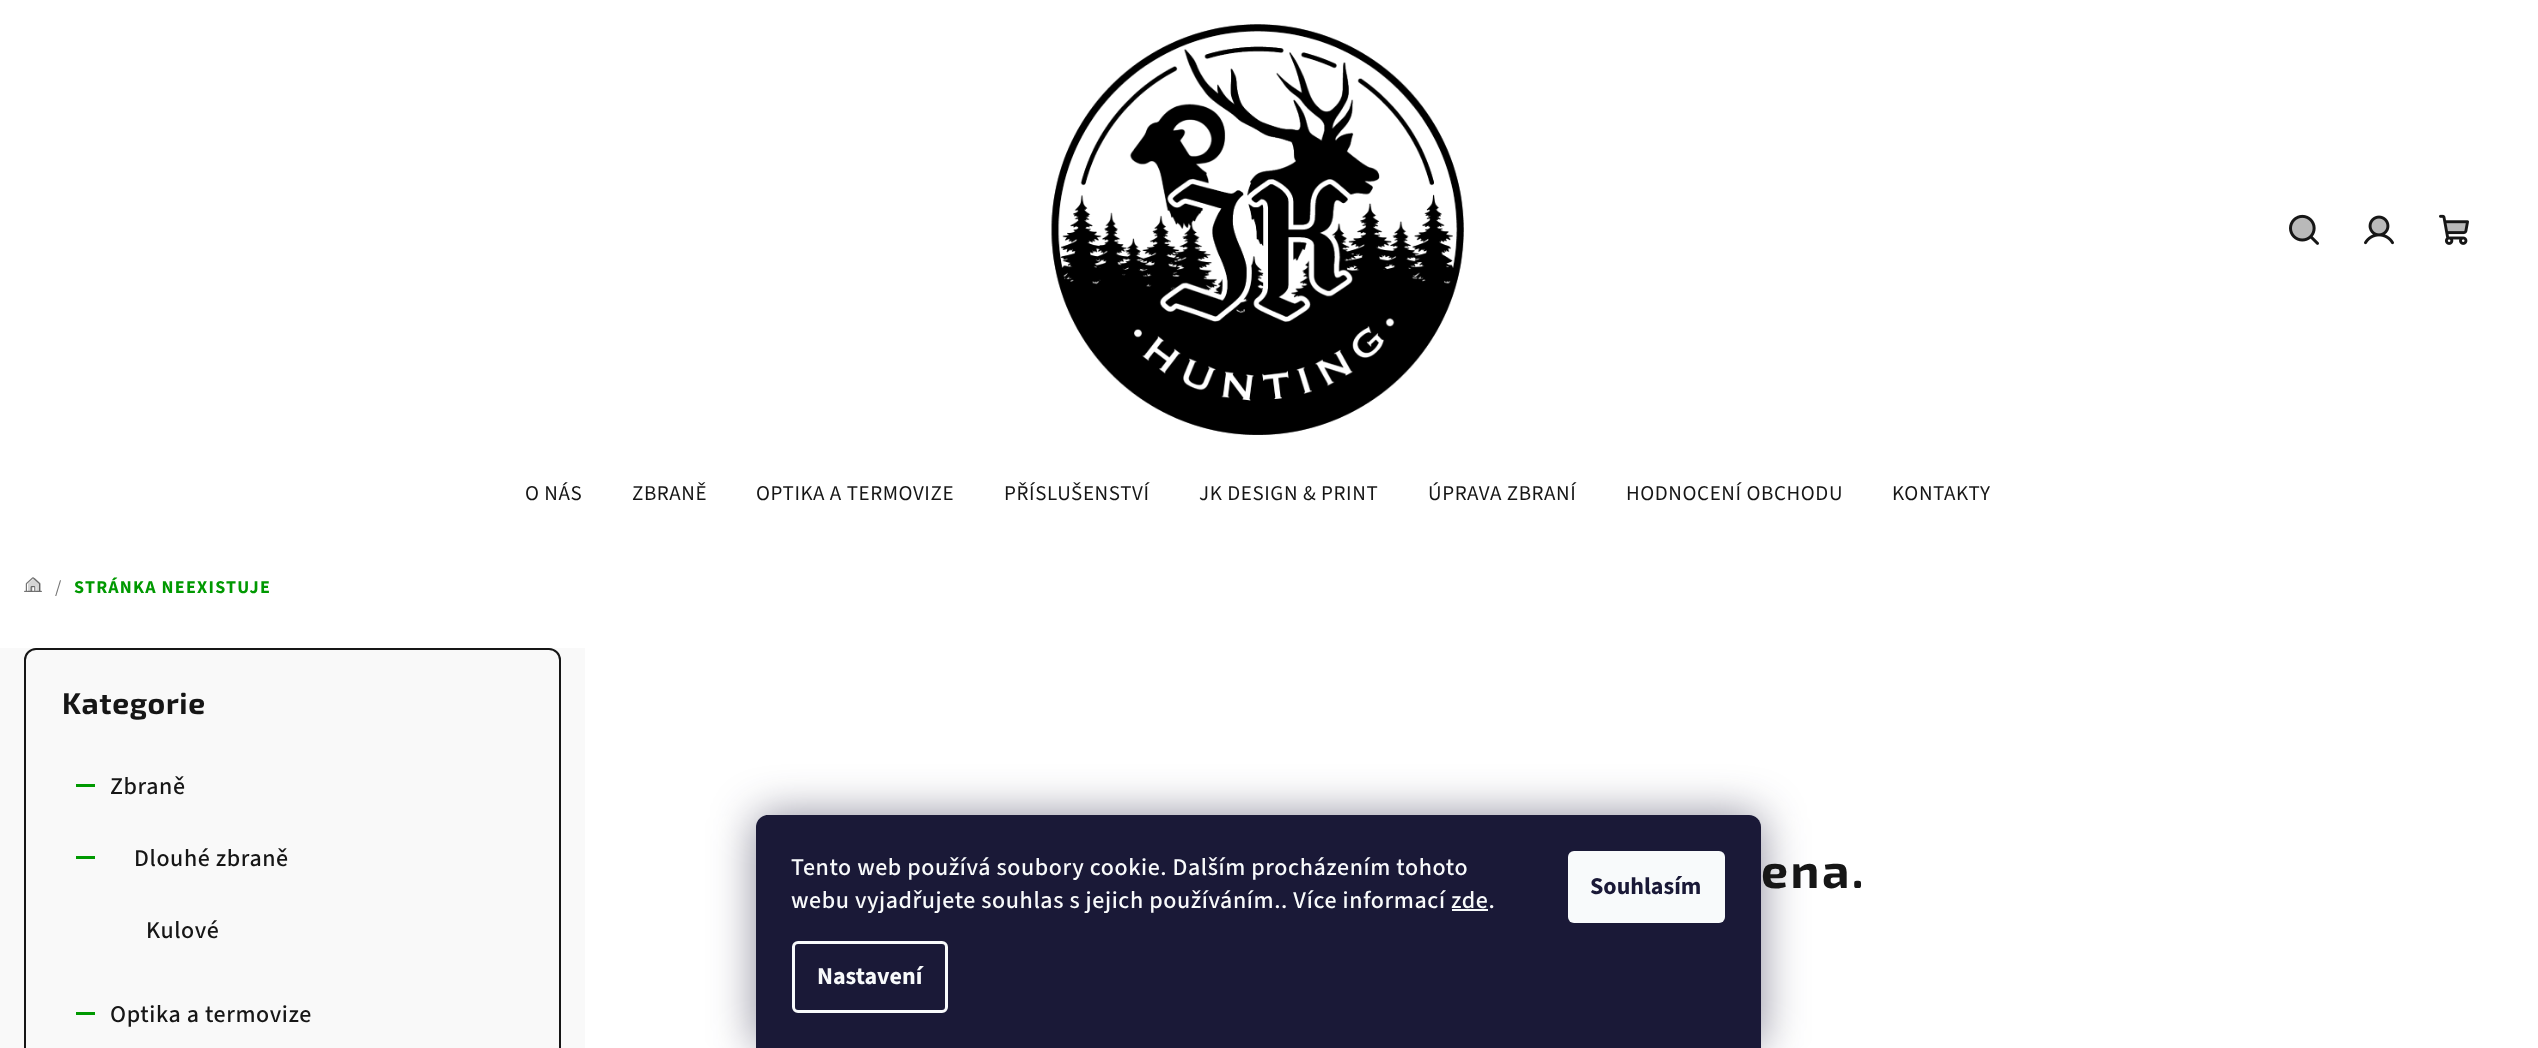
<svg xmlns="http://www.w3.org/2000/svg" xmlns:xlink="http://www.w3.org/1999/xlink" width="2538" height="1048" viewBox="0 0 2538 1048">
<style>
.cls-1{font:21px 'Source Sans 3';letter-spacing:0.6px;fill:#161616}
.cls-2{font:18px 'Source Sans 3';letter-spacing:1.25px;fill:#747474}
.cls-3{font:bold 18px 'Source Sans 3';letter-spacing:1.25px;fill:#009901}
.cls-4{font:bold 30px 'Exo 2';letter-spacing:0.6px;fill:#161616}
.cls-5{font:500 24px 'Source Sans 3';letter-spacing:0.6px;fill:#161616}
.cls-6{font:bold 48px 'Exo 2';letter-spacing:2.5px;fill:#161616}
.cls-7{font:500 24px 'Source Sans 3';letter-spacing:0.6px;fill:#f8fafb}
.cls-8{font:bold 24px 'Source Sans 3';fill:#f8fafb}
.cls-9{font:bold 24px 'Source Sans 3';fill:#1a1937}
</style>
<rect width="100%" height="100%" fill="#ffffff"/>
<image xlink:href="image0.png" x="1051" y="24" width="413" height="411"/>
<image xlink:href="image1.png" x="2289" y="214" width="30" height="31"/>
<path fill="#161616" fill-opacity="0.3" d="M2302.5 240C2318 240 2318 216.5 2302.5 216.5C2287 216.5 2287 240 2302.5 240Z"/>
<image xlink:href="image2.png" x="2364" y="215" width="30" height="30"/>
<path fill="#161616" fill-opacity="0.3" d="M2379 235C2390.5 235 2390.5 217 2379 217C2367.5 217 2367.5 235 2379 235Z"/>
<image xlink:href="image3.png" x="2439" y="214" width="30" height="31"/>
<path fill="#161616" fill-opacity="0.3" d="M2447 232.5H2461C2465 232.5 2465.5 233 2466 229.5L2467.5 221.5H2445Z"/>
<image xlink:href="image4.png" x="24" y="577" width="18" height="15"/>
<image xlink:href="image5.png" x="28" y="578" width="13" height="14"/>
<rect fill="#f9f9f9" x="0" y="648" width="585" height="400"/>
<rect fill="none" stroke="#161616" stroke-width="2" x="25" y="649" width="535" height="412" rx="11"/>
<rect fill="#009901" x="76" y="784" width="19" height="3"/>
<rect fill="#009901" x="76" y="856" width="19" height="3"/>
<rect fill="#009901" x="76" y="1012" width="19" height="3"/>
<rect fill="#1b1939" fill-opacity="0.5" filter="blur(22.5px)" x="756" y="815" width="1005" height="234" rx="12"/>
<path fill="#1a1937" d="M768 815H1749C1755.5 815 1761 820.5 1761 827V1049H756V827C756 820.5 761.5 815 768 815Z"/>
<rect fill="#f8fafb" x="1452" y="909" width="36" height="2"/>
<rect fill="none" stroke="#f8fafb" stroke-width="3" x="793.5" y="942.5" width="153" height="69" rx="4.5"/>
<rect fill="#f8fafb" x="1568" y="851" width="157" height="72" rx="6"/>
<text class="cls-1" x="525" y="500">O NÁS</text>
<text class="cls-1" x="632" y="500">ZBRANĚ</text>
<text class="cls-1" x="756" y="500">OPTIKA A TERMOVIZE</text>
<text class="cls-1" x="1004" y="500">PŘÍSLUŠENSTVÍ</text>
<text class="cls-1" x="1199" y="500">JK DESIGN &amp; PRINT</text>
<text class="cls-1" x="1428" y="500">ÚPRAVA ZBRANÍ</text>
<text class="cls-1" x="1626" y="500">HODNOCENÍ OBCHODU</text>
<text class="cls-1" x="1892" y="500">KONTAKTY</text>
<text class="cls-2" x="55" y="593">/</text>
<text class="cls-3" x="74" y="593">STRÁNKA NEEXISTUJE</text>
<text class="cls-4" x="62" y="714">Kategorie</text>
<text class="cls-5" x="110" y="794">Zbraně</text>
<text class="cls-5" x="134" y="866">Dlouhé zbraně</text>
<text class="cls-5" x="146" y="938">Kulové</text>
<text class="cls-5" x="110" y="1022">Optika a termovize</text>
<text class="cls-6" x="1761" y="888">ena.</text>
<text class="cls-7"><tspan x="791" y="875">Tento web používá soubory cookie. Dalším procházením tohoto</tspan><tspan x="791" y="908">webu vyjadřujete souhlas s jejich používáním.. Více informací zde.</tspan></text>
<text class="cls-8" x="817" y="984">Nastavení</text>
<text class="cls-9" x="1590" y="894">Souhlasím</text>
</svg>
